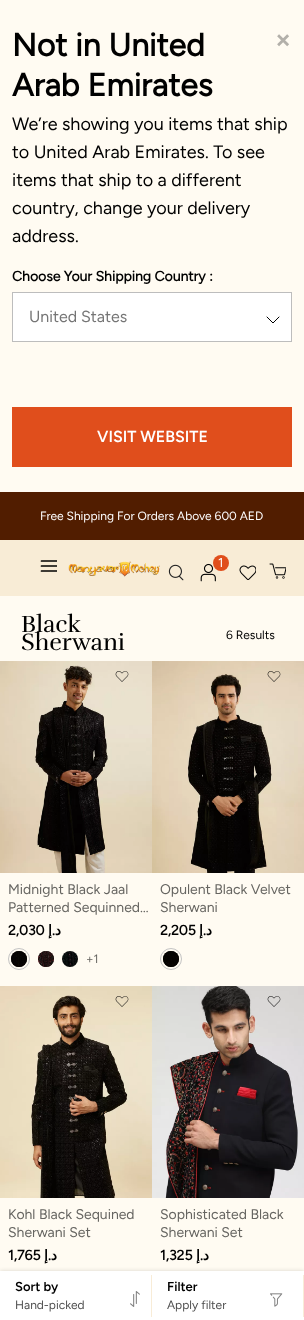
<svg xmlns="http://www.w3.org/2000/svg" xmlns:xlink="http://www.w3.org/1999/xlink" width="304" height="1320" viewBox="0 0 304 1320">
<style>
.cls-1{font:bold 32px Figtree;fill:#000000}
.cls-2{font:bold 28px Figtree;fill:#b3b0aa}
.cls-3{font:18px Figtree;fill:#000000}
.cls-4{font:bold 14px Figtree;fill:#000000}
.cls-5{font:16px Figtree;fill:#757575}
.cls-6{font:600 16px Figtree;fill:#ffffff}
.cls-7{font:12px Figtree;fill:#ffffff}
.cls-8{font:13px Figtree;fill:#ffffff}
.cls-9{font:24px Rufina;fill:#000000}
.cls-10{font:12px Figtree;fill:#000000}
.cls-11{font:14px Figtree;fill:#666561}
.cls-12{font:bold 14px DejaVu Sans;direction:rtl;fill:#000000}
.cls-13{font:bold 14px Figtree;direction:rtl;fill:#000000}
.cls-14{font:12px Figtree;fill:#666561}
.cls-15{font:600 13px Figtree;fill:#000000}
.cls-16{font:12px Figtree;fill:#4d4d4d}
</style>
<defs>
<clipPath id="clip1"><rect x="39" y="556" width="18" height="18"/></clipPath>
</defs>
<rect width="100%" height="100%" fill="#fffbf2"/>
<rect fill="#ffffff" stroke="#bdbdbd" x="12.5" y="292.5" width="279" height="49"/>
<image xlink:href="image0.png" x="266" y="316" width="14" height="7"/>
<rect fill="#e04e1c" x="12" y="407" width="280" height="60"/>
<rect fill="#f8ecd6" x="0" y="540" width="304" height="56"/>
<rect fill="#511d00" x="0" y="492" width="304" height="48"/>
<g clip-path="url(#clip1)">
<path fill="none" stroke="#000000" stroke-width="1.7" stroke-linecap="round" d="M41.5 561H56.5M41.5 566H56.5M41.5 571H56.5"/>
</g>
<image xlink:href="image1.png" x="68" y="561" width="92" height="16"/>
<image xlink:href="image2.png" x="200" y="563" width="16" height="19"/>
<circle fill="#e04e1c" cx="221" cy="563" r="8"/>
<image xlink:href="image3.png" x="168" y="564" width="16" height="17"/>
<image xlink:href="image4.png" x="239" y="565" width="17" height="15"/>
<image xlink:href="image5.png" x="269" y="563" width="17" height="16"/>
<image xlink:href="image6.png" x="0" y="661" width="152" height="212"/>
<image xlink:href="image7.png" x="115" y="671" width="14" height="11"/>
<circle fill="none" stroke="#c4c4c4" cx="19" cy="959" r="10.5"/>
<image xlink:href="image8.png" x="11" y="951" width="16" height="16"/>
<image xlink:href="image9.png" x="11" y="951" width="16" height="16"/>
<image xlink:href="image10.png" x="38" y="951" width="16" height="16"/>
<image xlink:href="image11.png" x="38" y="951" width="16" height="16"/>
<image xlink:href="image12.png" x="62" y="951" width="16" height="16"/>
<image xlink:href="image13.png" x="152" y="661" width="152" height="212"/>
<image xlink:href="image14.png" x="267" y="671" width="14" height="11"/>
<circle fill="none" stroke="#c4c4c4" cx="171" cy="959" r="10.5"/>
<image xlink:href="image15.png" x="163" y="951" width="16" height="16"/>
<image xlink:href="image16.png" x="163" y="951" width="16" height="16"/>
<image xlink:href="image17.png" x="0" y="986" width="152" height="212"/>
<image xlink:href="image18.png" x="115" y="996" width="14" height="11"/>
<image xlink:href="image19.png" x="152" y="986" width="152" height="212"/>
<image xlink:href="image20.png" x="267" y="996" width="14" height="11"/>
<rect fill="#000000" fill-opacity="0.15" filter="blur(2px)" x="0" y="1271" width="304" height="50"/>
<rect fill="#ffffff" x="0" y="1271" width="304" height="49"/>
<rect fill="#f8ecd7" x="151" y="1275" width="1" height="42"/>
<image xlink:href="image21.png" x="130" y="1291" width="10" height="16"/>
<rect fill="#f8ecd7" x="303" y="1275" width="1" height="42"/>
<image xlink:href="image22.png" x="270" y="1293" width="13" height="14"/>
<text class="cls-1"><tspan x="12" y="56">Not in United</tspan><tspan x="12" y="96">Arab Emirates</tspan></text>
<text class="cls-2" x="274" y="49">×</text>
<text class="cls-3"><tspan x="12" y="130">We’re showing you items that ship</tspan><tspan x="12" y="158">to United Arab Emirates. To see</tspan><tspan x="12" y="186">items that ship to a different</tspan><tspan x="12" y="214">country, change your delivery</tspan><tspan x="12" y="242">address.</tspan></text>
<text class="cls-4" x="12" y="281">Choose Your Shipping Country :</text>
<text class="cls-5" x="29" y="322">United States</text>
<text class="cls-6" x="97" y="442">VISIT WEBSITE</text>
<text class="cls-7" x="40" y="520">Free Shipping For Orders Above 600 AED</text>
<text class="cls-8" x="218" y="567">1</text>
<text class="cls-9"><tspan x="21" y="632">Black</tspan><tspan x="21" y="650">Sherwani</tspan></text>
<text class="cls-10" x="226" y="639">6 Results</text>
<text class="cls-11"><tspan x="8" y="894">Midnight Black Jaal</tspan><tspan x="8" y="912">Patterned Sequinned…</tspan></text>
<text class="cls-4" x="8" y="935">2,030</text>
<text class="cls-12" x="52" y="935">إ</text>
<text class="cls-13" x="55" y="935">.</text>
<text class="cls-12" x="61" y="935">د</text>
<text class="cls-14" x="86" y="963">+1</text>
<text class="cls-11"><tspan x="160" y="894">Opulent Black Velvet</tspan><tspan x="160" y="912">Sherwani</tspan></text>
<text class="cls-4" x="160" y="935">2,205</text>
<text class="cls-12" x="203" y="935">إ</text>
<text class="cls-13" x="206" y="935">.</text>
<text class="cls-12" x="212" y="935">د</text>
<text class="cls-11"><tspan x="8" y="1219">Kohl Black Sequined</tspan><tspan x="8" y="1237">Sherwani Set</tspan></text>
<text class="cls-4" x="8" y="1260">1,765</text>
<text class="cls-12" x="48" y="1260">إ</text>
<text class="cls-13" x="51" y="1260">.</text>
<text class="cls-12" x="57" y="1260">د</text>
<text class="cls-11"><tspan x="160" y="1219">Sophisticated Black</tspan><tspan x="160" y="1237">Sherwani Set</tspan></text>
<text class="cls-4" x="160" y="1260">1,325</text>
<text class="cls-12" x="200" y="1260">إ</text>
<text class="cls-13" x="203" y="1260">.</text>
<text class="cls-12" x="209" y="1260">د</text>
<text class="cls-15" x="15" y="1291">Sort by</text>
<text class="cls-16" x="15" y="1309">Hand-picked</text>
<text class="cls-15" x="167" y="1291">Filter</text>
<text class="cls-16" x="167" y="1309">Apply filter</text>
</svg>
